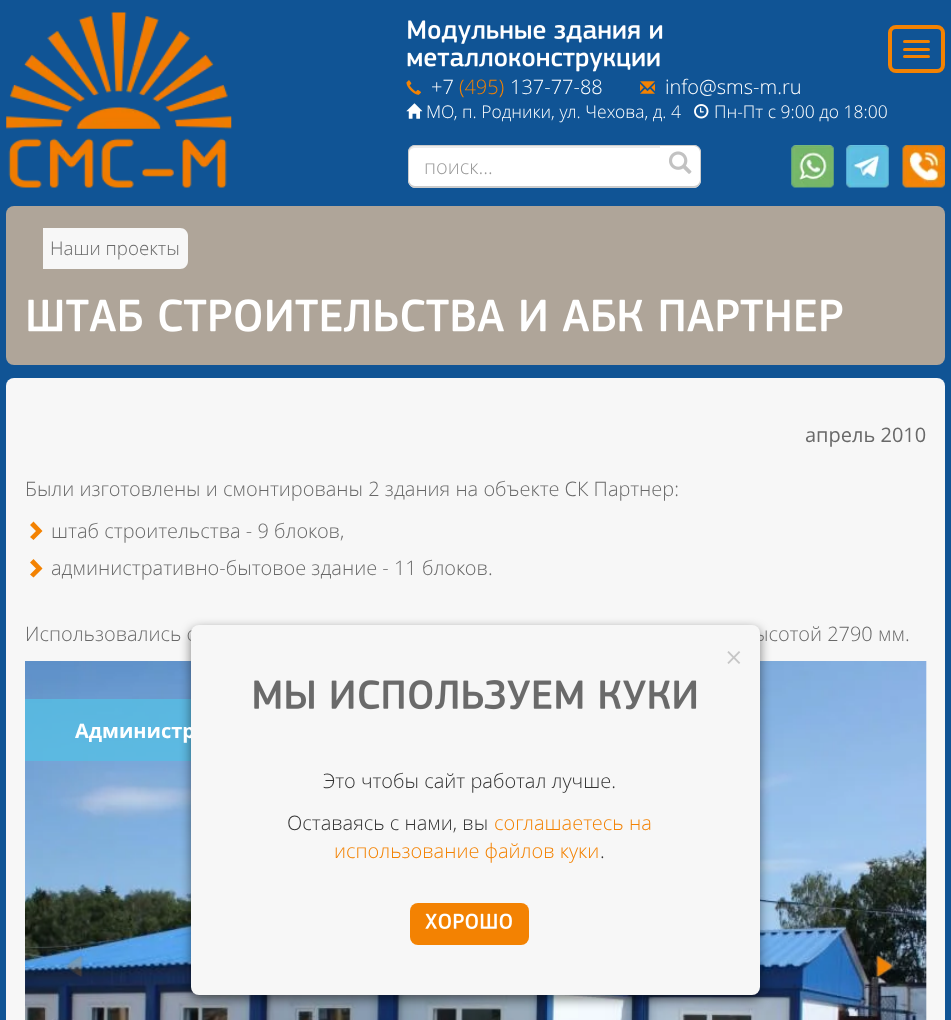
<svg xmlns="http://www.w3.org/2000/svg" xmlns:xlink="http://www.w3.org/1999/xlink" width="951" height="1020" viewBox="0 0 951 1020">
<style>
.cls-1{font:300 20px Open Sans;fill:#ffffff}
.cls-2{font:300 20px Open Sans;fill:#f38202}
.cls-3{font:300 17.5px Open Sans;fill:#ffffff}
.cls-4{font:300 20px Open Sans;fill:#999999}
.cls-5{font:300 18.75px Open Sans;fill:#696969}
.cls-6{font:20px Open Sans;fill:#696969}
.cls-7{font:300 20px Open Sans;fill:#696969}
.cls-8{font:bold 20px Open Sans;fill:#ffffff}
.cls-9{font:bold 26px 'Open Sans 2';fill:#c6c6c6}
.cls-10{font:300 20px Open Sans;fill:#333333}
</style>
<rect width="100%" height="100%" fill="#105495"/>
<image xlink:href="image0.png" x="6" y="12" width="226" height="176"/>
<rect fill="none" stroke="#f38202" stroke-width="4" x="890" y="27" width="53" height="44" rx="6"/>
<rect fill="#f38202" x="903" y="40" width="27" height="3" rx="1.5"/>
<rect fill="#f38202" x="903" y="48" width="27" height="3" rx="1.5"/>
<rect fill="#f38202" x="903" y="55" width="27" height="3" rx="1.5"/>
<image xlink:href="image1.png" x="408" y="20" width="255" height="24"/>
<image xlink:href="image2.png" x="407" y="52" width="253" height="20"/>
<image xlink:href="image3.png" x="406" y="80" width="15" height="15"/>
<image xlink:href="image4.png" x="640" y="81" width="15" height="13"/>
<image xlink:href="image5.png" x="406" y="103" width="17" height="16"/>
<image xlink:href="image6.png" x="694" y="104" width="15" height="15"/>
<path fill="#ffffff" d="M416 145H666V188H416C411.5 188 408 184.5 408 180V153C408 148.5 411.5 145 416 145Z"/>
<path fill="#ececec" d="M415 148H666V146H415C410 146 409 150 409 154C409 150 412 148 415 148Z"/>
<path fill="#cccccc" fill-rule="evenodd" d="M415 145H666V188H415C411 188 408 184 408 180V152C408 148 411 145 415 145ZM415 146H666V186H415C412 186 409 183 409 180V152C409 149 412 146 415 146Z"/>
<path fill="#ffffff" d="M660 145H693C697.5 145 701 148.5 701 153V180C701 184.5 697.5 188 693 188H660Z"/>
<path fill="#cccccc" fill-rule="evenodd" d="M660 145H694C698 145 701 148 701 152V180C701 184 698 188 694 188H660ZM660 146H694C697 146 700 149 700 152V180C700 183 697 186 694 186H660Z"/>
<image xlink:href="image7.png" x="669" y="151" width="23" height="23"/>
<image xlink:href="image8.png" x="791" y="145" width="43" height="43"/>
<image xlink:href="image9.png" x="846" y="145" width="43" height="43"/>
<image xlink:href="image10.png" x="902" y="145" width="43" height="43"/>
<rect fill="#afa599" x="6" y="206" width="939" height="159" rx="8"/>
<path fill="#f7f7f7" d="M43 228H180C184.5 228 188 231.5 188 236V261C188 265.5 184.5 269 180 269H43Z"/>
<image xlink:href="image11.png" x="28" y="299" width="815" height="33"/>
<rect fill="#f7f7f7" x="6" y="378" width="939" height="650" rx="8"/>
<path fill="#f38202" d="M42.5 531L33.5 540L30 537L36 531L30 525L33.5 521.5ZM42.5 568.5L33.5 577.5L30 574.5L36 568.5L30 562.5L33.5 559Z"/>
<image xlink:href="image12.png" x="25" y="661" width="902" height="359"/>
<rect fill="#56bee3" fill-opacity="0.8" x="25" y="699" width="166" height="62"/>
<image xlink:href="image13.png" x="65" y="955" width="19" height="22"/>
<image xlink:href="image14.png" x="874" y="954" width="20" height="25"/>
<rect fill="#000000" fill-opacity="0.5" filter="blur(5.5px)" x="191" y="629" width="569" height="370" rx="8"/>
<text class="cls-1" x="431" y="94">+7</text>
<text class="cls-2" x="459" y="94">(495)</text>
<text class="cls-1" x="510" y="94">137-77-88</text>
<text class="cls-1" x="665" y="94">info@sms-m.ru</text>
<text class="cls-3" x="426" y="118">МО, п. Родники, ул. Чехова, д. 4</text>
<text class="cls-3" x="714" y="118">Пн-Пт с 9:00 до 18:00</text>
<text class="cls-4" x="424" y="174">поиск...</text>
<text class="cls-5" x="50" y="255">Наши проекты</text>
<text class="cls-6" x="805" y="442">апрель 2010</text>
<text class="cls-7" x="25" y="496">Были изготовлены и смонтированы 2 здания на объекте СК Партнер:</text>
<text class="cls-7"><tspan x="51" y="538">штаб строительства - 9 блоков,</tspan><tspan x="51" y="575">административно-бытовое здание - 11 блоков.</tspan></text>
<text class="cls-7" x="25" y="641">Использовались с</text>
<text class="cls-7" x="754" y="641">ысотой 2790 мм.</text>
<text class="cls-8" x="75" y="738">Администр</text>
<rect fill="#f7f7f7" x="191" y="625" width="569" height="370" rx="8"/>
<text class="cls-9" x="726" y="667">×</text>
<image xlink:href="image15.png" x="254" y="680" width="443" height="30"/>
<text class="cls-10" x="323" y="788">Это чтобы сайт работал лучше.</text>
<text class="cls-10" x="287" y="830">Оставаясь с нами, вы</text>
<text class="cls-2" x="494" y="830">соглашаетесь на</text>
<text class="cls-2" x="334" y="858">использование файлов куки</text>
<text class="cls-10" x="600" y="858">.</text>
<rect fill="#f38202" x="410" y="903" width="119" height="42" rx="8"/>
<image xlink:href="image16.png" x="425" y="913" width="87" height="16"/>
</svg>
